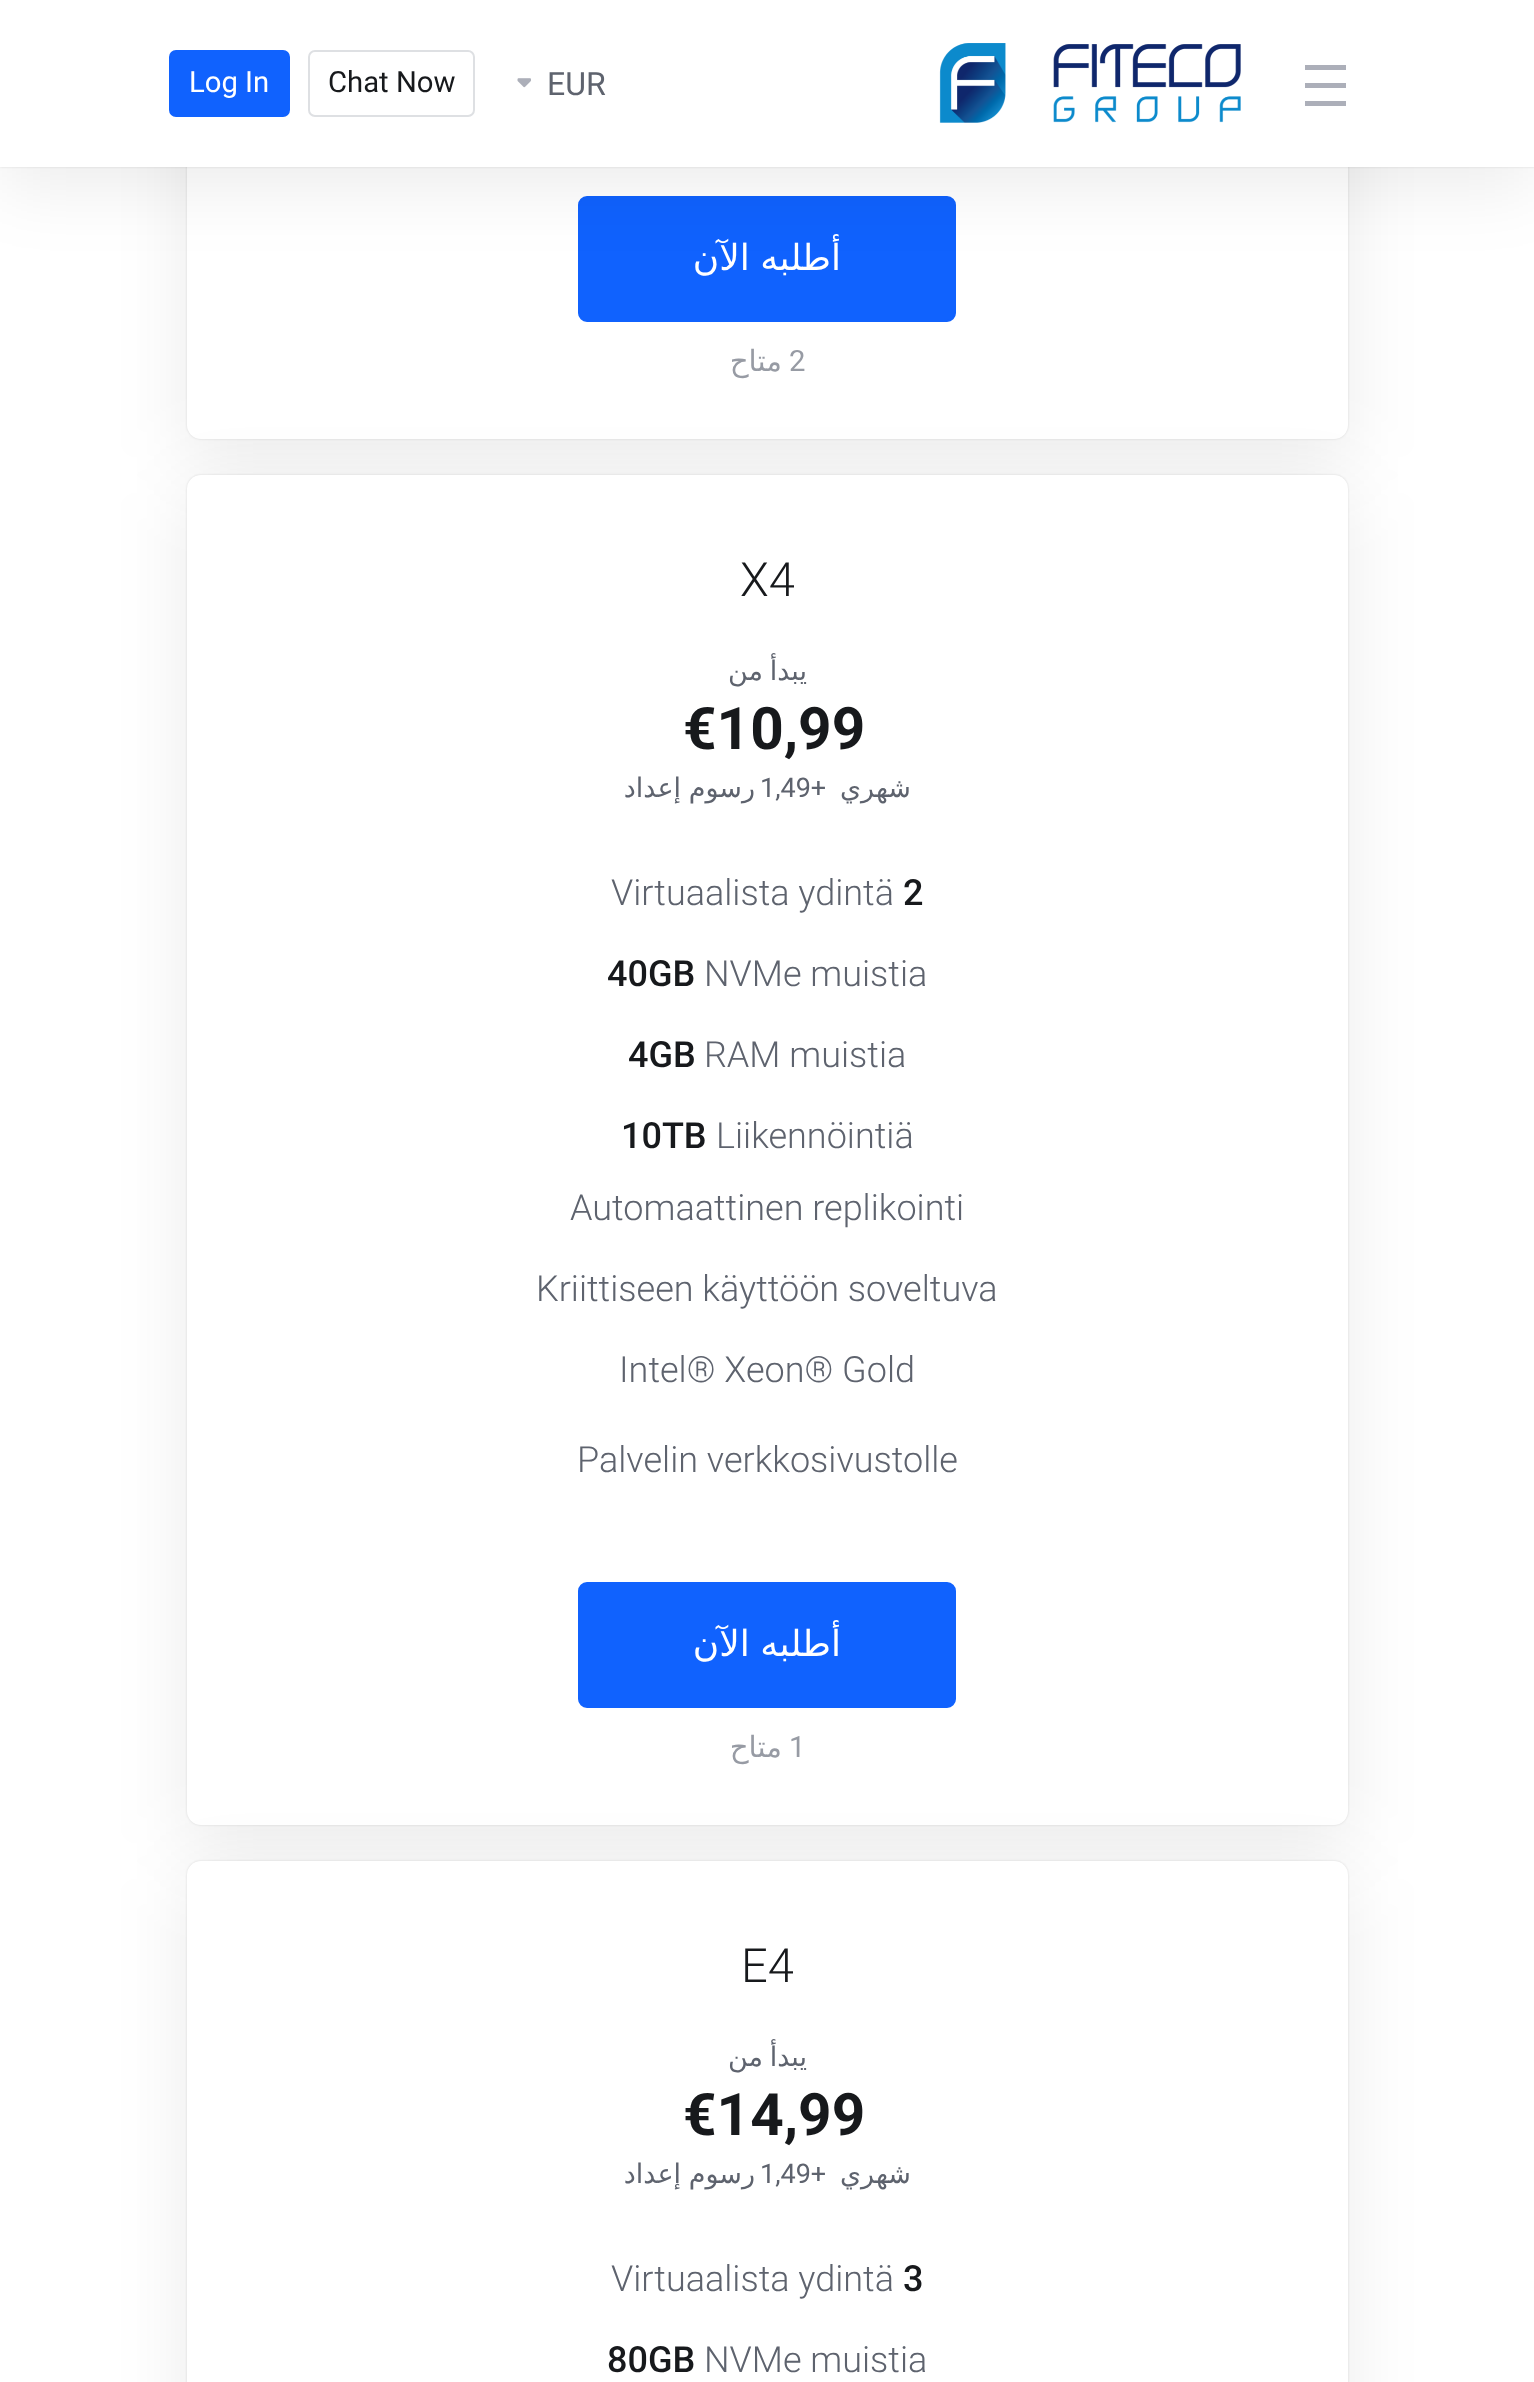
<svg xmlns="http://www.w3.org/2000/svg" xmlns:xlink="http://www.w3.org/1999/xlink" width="1534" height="2382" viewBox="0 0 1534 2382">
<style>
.cls-1{font:29.25px Roboto;fill:#ffffff}
.cls-2{font:29.25px Roboto;fill:#17191c}
.cls-3{font:32px Roboto;fill:#5e636e}
.cls-4{font:36px DejaVu Sans;direction:rtl;fill:#ffffff}
.cls-5{font:29.25px DejaVu Sans;direction:rtl;fill:#979ba4}
.cls-6{font:29.25px Roboto;fill:#979ba4}
.cls-7{font:300 47px Roboto;fill:#17191c}
.cls-8{font:27px DejaVu Sans;direction:rtl;fill:#5e636e}
.cls-9{font:bold 58.5px Roboto;fill:#17191c}
.cls-10{font:27px Roboto;fill:#5e636e}
.cls-11{font:300 36px Roboto;fill:#5e636e}
.cls-12{font:500 36px Roboto;fill:#17191c}
</style>
<rect width="100%" height="100%" fill="#ffffff"/>
<rect fill="#000000" fill-opacity="0.08" filter="blur(36px)" x="187" y="-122" width="1161" height="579" rx="14"/>
<rect fill="#000000" fill-opacity="0.12" filter="blur(1px)" x="187" y="-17" width="1161" height="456" rx="14"/>
<rect fill="#ffffff" x="187" y="-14" width="1161" height="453" rx="14"/>
<rect fill="#1062fe" stroke="#1062fe" stroke-width="2" x="579" y="197" width="376" height="124" rx="8"/>
<rect fill="#000000" fill-opacity="0.08" filter="blur(36px)" x="0" y="18" width="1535" height="167"/>
<rect fill="#000000" fill-opacity="0.12" filter="blur(1px)" x="0" y="0" width="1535" height="167"/>
<rect fill="#ffffff" x="0" y="0" width="1534" height="167"/>
<rect fill="#1062fe" stroke="#1062fe" stroke-width="2" x="170" y="51" width="119" height="65" rx="6"/>
<rect fill="none" stroke="#dee0e3" stroke-width="2" x="309" y="51" width="165" height="65" rx="6"/>
<image xlink:href="image0.png" x="517" y="78" width="14" height="10"/>
<image xlink:href="image1.png" x="939" y="43" width="302" height="80"/>
<rect fill="#acafb9" x="1305" y="65" width="41" height="5"/>
<rect fill="#acafb9" x="1305" y="83" width="41" height="5"/>
<rect fill="#acafb9" x="1305" y="101" width="41" height="5"/>
<rect fill="#000000" fill-opacity="0.08" filter="blur(36px)" x="187" y="493" width="1161" height="1350" rx="14"/>
<rect fill="#000000" fill-opacity="0.12" filter="blur(1px)" x="187" y="475" width="1161" height="1350" rx="14"/>
<rect fill="#ffffff" x="187" y="475" width="1161" height="1350" rx="14"/>
<rect fill="#1062fe" stroke="#1062fe" stroke-width="2" x="579" y="1583" width="376" height="124" rx="8"/>
<rect fill="#000000" fill-opacity="0.08" filter="blur(36px)" x="187" y="1879" width="1161" height="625" rx="14"/>
<rect fill="#000000" fill-opacity="0.12" filter="blur(1px)" x="187" y="1861" width="1161" height="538" rx="14"/>
<rect fill="#ffffff" x="187" y="1861" width="1161" height="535" rx="14"/>
<text class="cls-1" x="189" y="92">Log In</text>
<text class="cls-2" x="328" y="92">Chat Now</text>
<text class="cls-3" x="547" y="95">EUR</text>
<text class="cls-4" x="841" y="270" word-spacing="-1">أطلبه الآن</text>
<text class="cls-5" x="782" y="371">متاح</text>
<text class="cls-6" x="789" y="371">2</text>
<text class="cls-7" x="740" y="596">X4</text>
<text class="cls-8" x="807" y="680" word-spacing="-2">يبدأ من</text>
<text class="cls-9" x="683" y="749">€10,99</text>
<text class="cls-8" x="755" y="797" word-spacing="-1">رسوم إعداد</text>
<text class="cls-10" x="760" y="797">1,49+</text>
<text class="cls-8" x="911" y="797">شهري</text>
<text class="cls-11" x="611" y="905">Virtuaalista ydintä</text>
<text class="cls-12" x="903" y="905">2</text>
<text class="cls-12" x="607" y="986">40GB</text>
<text class="cls-11" x="704" y="986">NVMe muistia</text>
<text class="cls-12" x="628" y="1067">4GB</text>
<text class="cls-11" x="704" y="1067">RAM muistia</text>
<text class="cls-12" x="621" y="1148">10TB</text>
<text class="cls-11" x="716" y="1148">Liikennöintiä</text>
<text class="cls-11" x="570" y="1220">Automaattinen replikointi</text>
<text class="cls-11" x="536" y="1301">Kriittiseen käyttöön soveltuva</text>
<text class="cls-11" x="619" y="1382">Intel® Xeon® Gold</text>
<text class="cls-11" x="577" y="1472">Palvelin verkkosivustolle</text>
<text class="cls-4" x="841" y="1656" word-spacing="-1">أطلبه الآن</text>
<text class="cls-5" x="782" y="1757">متاح</text>
<text class="cls-6" x="789" y="1757">1</text>
<text class="cls-7" x="741" y="1982">E4</text>
<text class="cls-8" x="807" y="2066" word-spacing="-2">يبدأ من</text>
<text class="cls-9" x="683" y="2135">€14,99</text>
<text class="cls-8" x="755" y="2183" word-spacing="-1">رسوم إعداد</text>
<text class="cls-10" x="760" y="2183">1,49+</text>
<text class="cls-8" x="911" y="2183">شهري</text>
<text class="cls-11" x="611" y="2291">Virtuaalista ydintä</text>
<text class="cls-12" x="903" y="2291">3</text>
<text class="cls-12" x="607" y="2372">80GB</text>
<text class="cls-11" x="704" y="2372">NVMe muistia</text>
</svg>
